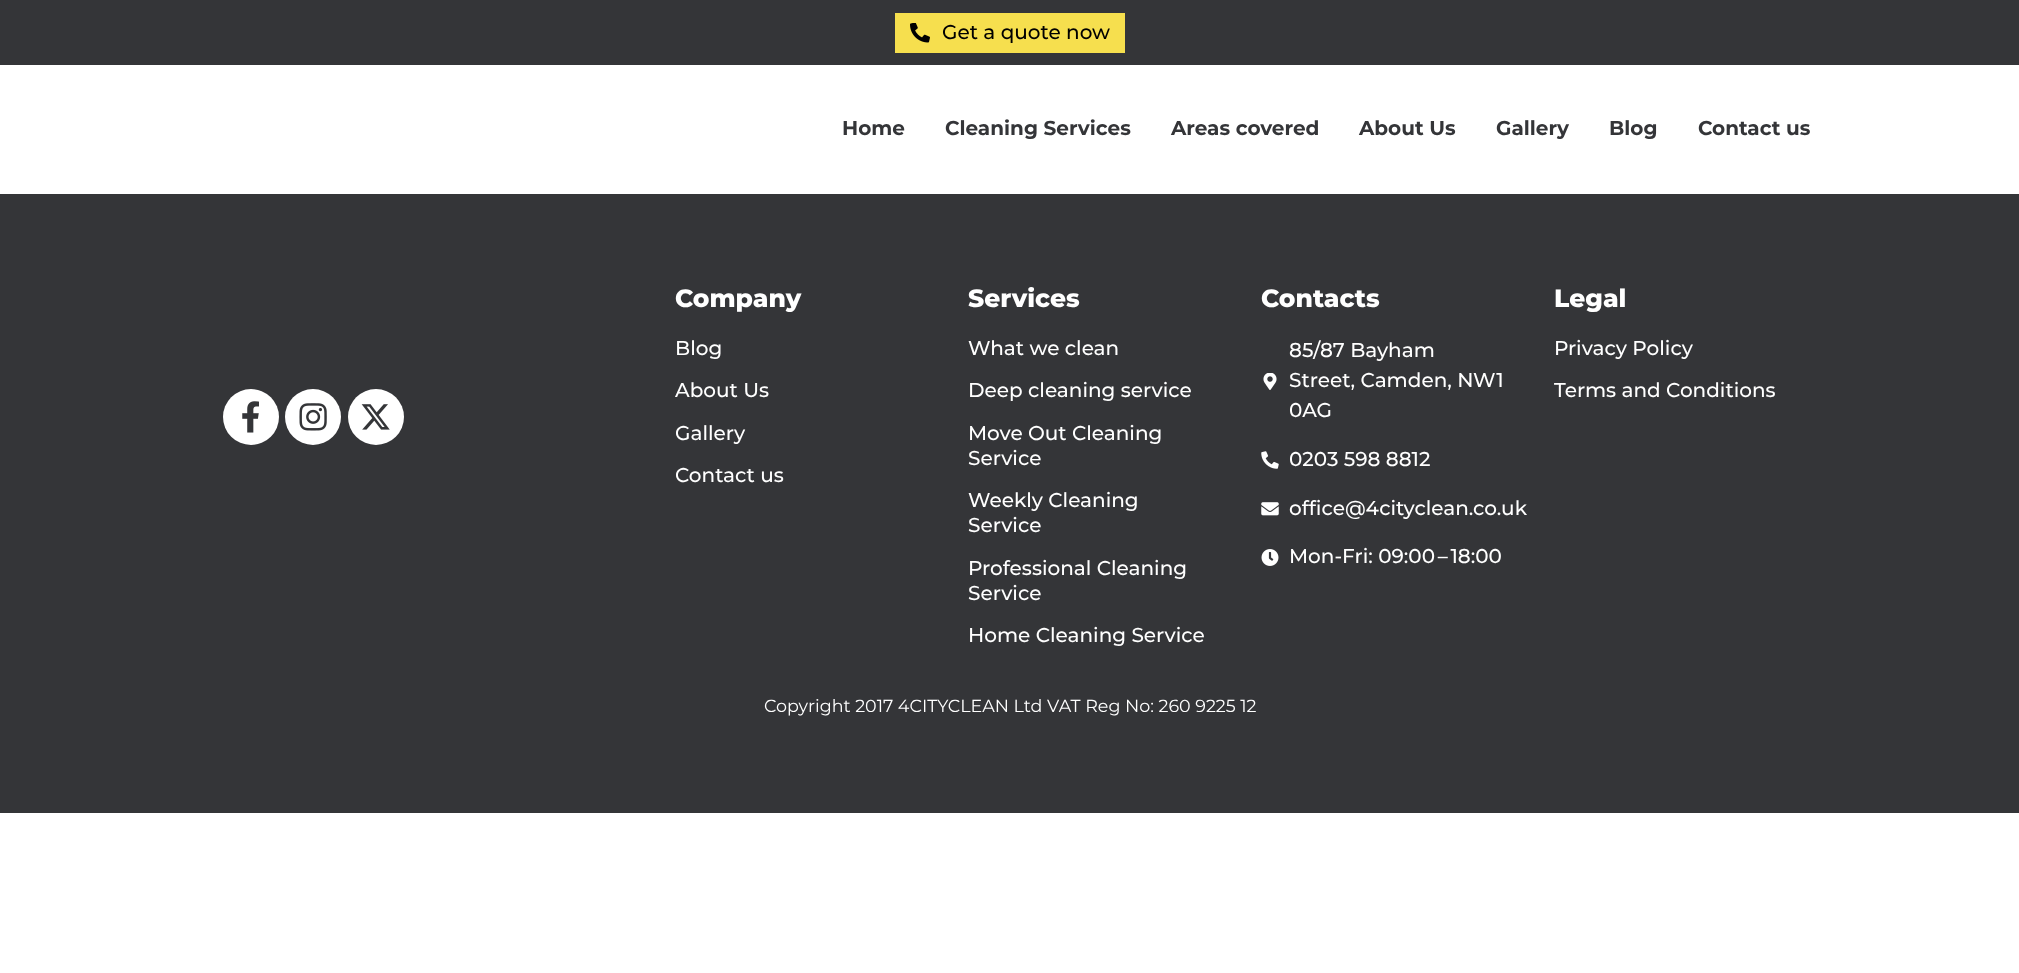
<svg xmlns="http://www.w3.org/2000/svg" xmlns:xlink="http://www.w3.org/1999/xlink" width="2019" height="973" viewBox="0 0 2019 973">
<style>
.cls-1{font:500 20px Montserrat;fill:#000000}
.cls-2{font:bold 20px Montserrat;fill:#343538}
.cls-3{font:800 25px Montserrat;fill:#ffffff}
.cls-4{font:500 20px Montserrat;fill:#ffffff}
.cls-5{font:17.5px Montserrat;fill:#ffffff}
</style>
<rect width="100%" height="100%" fill="#ffffff"/>
<rect fill="#343538" x="0" y="0" width="2019" height="65"/>
<rect fill="#f6df4e" x="895" y="13" width="230" height="40"/>
<image xlink:href="image0.png" x="910" y="23" width="20" height="20"/>
<rect fill="#343538" x="0" y="194" width="2019" height="619"/>
<circle fill="#ffffff" cx="251" cy="417" r="28"/>
<image xlink:href="image1.png" x="242" y="401" width="17" height="32"/>
<circle fill="#ffffff" cx="313" cy="417" r="28"/>
<image xlink:href="image2.png" x="299" y="403" width="28" height="28"/>
<circle fill="#ffffff" cx="376" cy="417" r="28"/>
<image xlink:href="image3.png" x="361" y="404" width="29" height="26"/>
<image xlink:href="image4.png" x="1263" y="373" width="14" height="17"/>
<image xlink:href="image5.png" x="1261" y="451" width="18" height="18"/>
<image xlink:href="image6.png" x="1261" y="502" width="18" height="14"/>
<image xlink:href="image7.png" x="1261" y="549" width="18" height="17"/>
<text class="cls-1" x="942" y="39">Get a quote now</text>
<text class="cls-2" x="842" y="135">Home</text>
<text class="cls-2" x="945" y="135">Cleaning Services</text>
<text class="cls-2" x="1171" y="135">Areas covered</text>
<text class="cls-2" x="1359" y="135">About Us</text>
<text class="cls-2" x="1496" y="135">Gallery</text>
<text class="cls-2" x="1609" y="135">Blog</text>
<text class="cls-2" x="1698" y="135">Contact us</text>
<text class="cls-3" x="675" y="307">Company</text>
<text class="cls-4" x="675" y="355">Blog</text>
<text class="cls-4" x="675" y="397">About Us</text>
<text class="cls-4" x="675" y="440">Gallery</text>
<text class="cls-4" x="675" y="482">Contact us</text>
<text class="cls-3" x="968" y="307">Services</text>
<text class="cls-4" x="968" y="355">What we clean</text>
<text class="cls-4" x="968" y="397">Deep cleaning service</text>
<text class="cls-4"><tspan x="968" y="440">Move Out Cleaning</tspan><tspan x="968" y="465">Service</tspan></text>
<text class="cls-4"><tspan x="968" y="507">Weekly Cleaning</tspan><tspan x="968" y="532">Service</tspan></text>
<text class="cls-4"><tspan x="968" y="575">Professional Cleaning</tspan><tspan x="968" y="600">Service</tspan></text>
<text class="cls-4" x="968" y="642">Home Cleaning Service</text>
<text class="cls-3" x="1261" y="307">Contacts</text>
<text class="cls-4"><tspan x="1289" y="357">85/87 Bayham</tspan><tspan x="1289" y="387">Street, Camden, NW1</tspan><tspan x="1289" y="417">0AG</tspan></text>
<text class="cls-4" x="1289" y="466">0203 598 8812</text>
<text class="cls-4" x="1289" y="515">office@4cityclean.co.uk</text>
<text class="cls-4" x="1289" y="563">Mon-Fri: 09:00 – 18:00</text>
<text class="cls-3" x="1554" y="307">Legal</text>
<text class="cls-4" x="1554" y="355">Privacy Policy</text>
<text class="cls-4" x="1554" y="397">Terms and Conditions</text>
<text class="cls-5" x="764" y="712">Copyright 2017 4CITYCLEAN Ltd VAT Reg No: 260 9225 12</text>
</svg>
